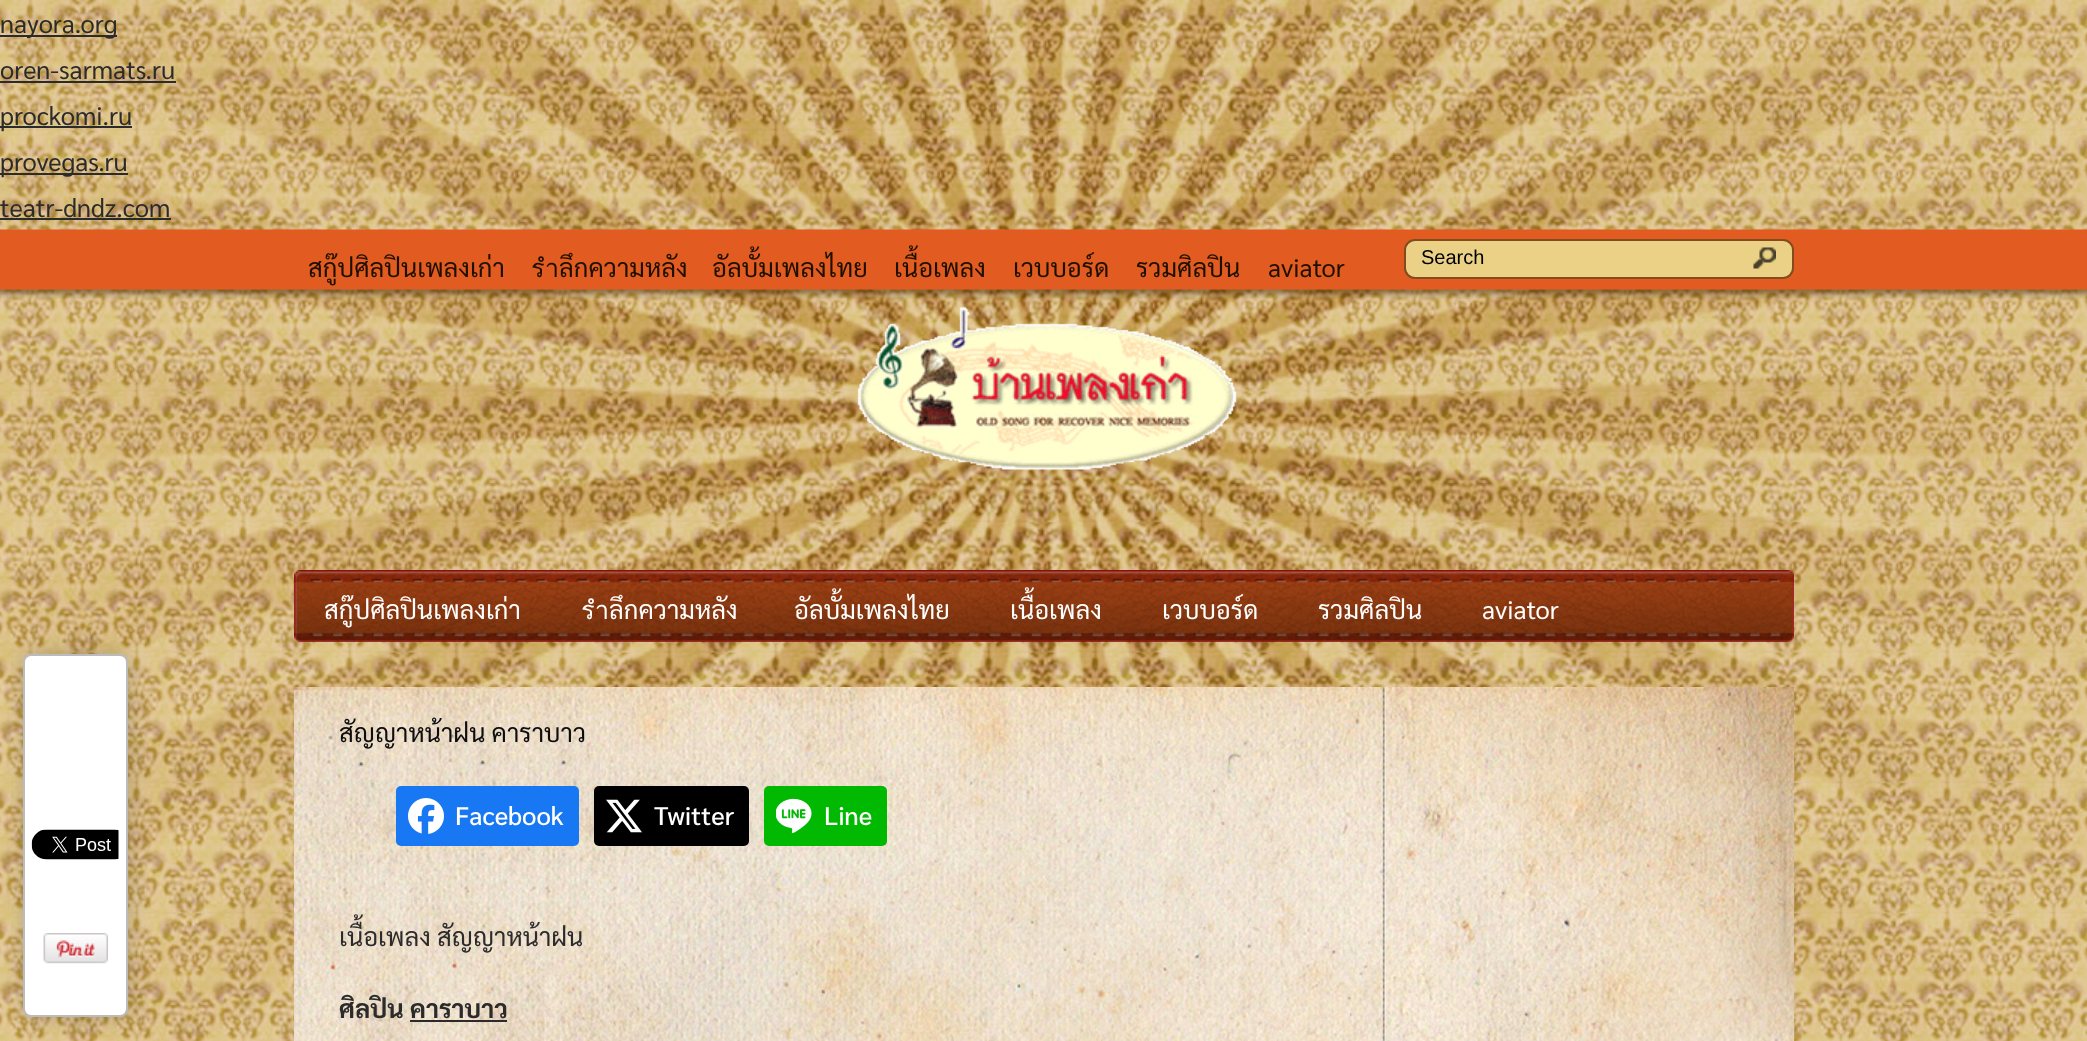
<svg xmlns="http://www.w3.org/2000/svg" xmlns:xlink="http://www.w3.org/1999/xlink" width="2087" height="1041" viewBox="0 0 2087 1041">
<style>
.cls-1{font:25.5px Sarabun;fill:#2b2b2b}
.cls-2{font:25.5px Sarabun;fill:#1d1000}
.cls-3{font:20px Liberation Sans;fill:#000000}
.cls-4{font:25.5px Sarabun;fill:#ffffff}
.cls-5{font:25.5px Sarabun;fill:#0d0d0d}
.cls-6{font:500 25.5px Sarabun;fill:#ffffff}
.cls-7{font:bold 25.5px Sarabun;fill:#2b2b2b}
</style>
<defs>
<clipPath id="clip1"><rect x="339" y="756" width="999" height="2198"/></clipPath>
</defs>
<rect width="100%" height="100%" fill="#ffffff"/>
<image xlink:href="image0.png" x="0" y="0" width="2087" height="1041"/>
<rect fill="#2b2b2b" x="0" y="35" width="117" height="2"/>
<rect fill="#2b2b2b" x="0" y="81" width="176" height="2"/>
<rect fill="#2b2b2b" x="0" y="126" width="132" height="2"/>
<rect fill="#2b2b2b" x="0" y="173" width="128" height="2"/>
<rect fill="#2b2b2b" x="0" y="218" width="171" height="2"/>
<image xlink:href="image1.png" x="0" y="229" width="2087" height="70"/>
<rect fill="#ead186" stroke="#824c1e" stroke-width="2" x="1405" y="240" width="388" height="38" rx="10"/>
<image xlink:href="image2.png" x="1753" y="247" width="23" height="22"/>
<image xlink:href="image3.png" x="857" y="307" width="380" height="163"/>
<image xlink:href="image4.png" x="294" y="570" width="1500" height="72"/>
<rect fill="#000000" fill-opacity="0.2" filter="blur(11px)" x="24" y="654" width="105" height="363" rx="8"/>
<rect fill="#ffffff" stroke="#bbbbbb" stroke-width="2" x="24" y="655" width="103" height="361" rx="7"/>
<image xlink:href="image5.png" x="31" y="829" width="88" height="31"/>
<image xlink:href="image6.png" x="43" y="933" width="65" height="31"/>
<image xlink:href="image7.png" x="294" y="687" width="1500" height="354"/>
<rect fill="#1877f2" x="396" y="786" width="183" height="60" rx="5"/>
<image xlink:href="image8.png" x="408" y="798" width="36" height="36"/>
<rect fill="#000000" x="594" y="786" width="155" height="60" rx="5"/>
<image xlink:href="image9.png" x="606" y="799" width="36" height="34"/>
<rect fill="#00b900" x="764" y="786" width="123" height="60" rx="5"/>
<image xlink:href="image10.png" x="776" y="798" width="36" height="36"/>
<rect fill="#2b2b2b" x="410" y="1020" width="97" height="2"/>
<text class="cls-1"><tspan x="0" y="33">nayora.org</tspan><tspan x="0" y="79">oren-sarmats.ru</tspan><tspan x="0" y="125">prockomi.ru</tspan><tspan x="0" y="171">provegas.ru</tspan><tspan x="0" y="217">teatr-dndz.com</tspan></text>
<text class="cls-2" x="308" y="277">สกู๊ปศิลปินเพลงเก่า</text>
<text class="cls-2" x="531" y="277">รำลึกความหลัง</text>
<text class="cls-2" x="712" y="277">อัลบั้มเพลงไทย</text>
<text class="cls-2" x="894" y="277">เนื้อเพลง</text>
<text class="cls-2" x="1013" y="277">เวบบอร์ด</text>
<text class="cls-2" x="1136" y="277">รวมศิลปิน</text>
<text class="cls-2" x="1268" y="277">aviator</text>
<text class="cls-3" x="1421" y="264">Search</text>
<text class="cls-4" x="324" y="619">สกู๊ปศิลปินเพลงเก่า</text>
<text class="cls-4" x="581" y="619">รำลึกความหลัง</text>
<text class="cls-4" x="794" y="619">อัลบั้มเพลงไทย</text>
<text class="cls-4" x="1010" y="619">เนื้อเพลง</text>
<text class="cls-4" x="1162" y="619">เวบบอร์ด</text>
<text class="cls-4" x="1318" y="619">รวมศิลปิน</text>
<text class="cls-4" x="1482" y="619">aviator</text>
<text class="cls-5" x="339" y="742">สัญญาหน้าฝน คาราบาว</text>
<text class="cls-6" x="455" y="825">Facebook</text>
<text class="cls-6" x="654" y="825">Twitter</text>
<text class="cls-6" x="824" y="825">Line</text>
<g clip-path="url(#clip1)">
<text class="cls-1" x="339" y="946">เนื้อเพลง สัญญาหน้าฝน</text>
<text class="cls-7" x="339" y="1018">ศิลปิน</text>
</g>
<text class="cls-7" x="410" y="1018">คาราบาว</text>
</svg>
